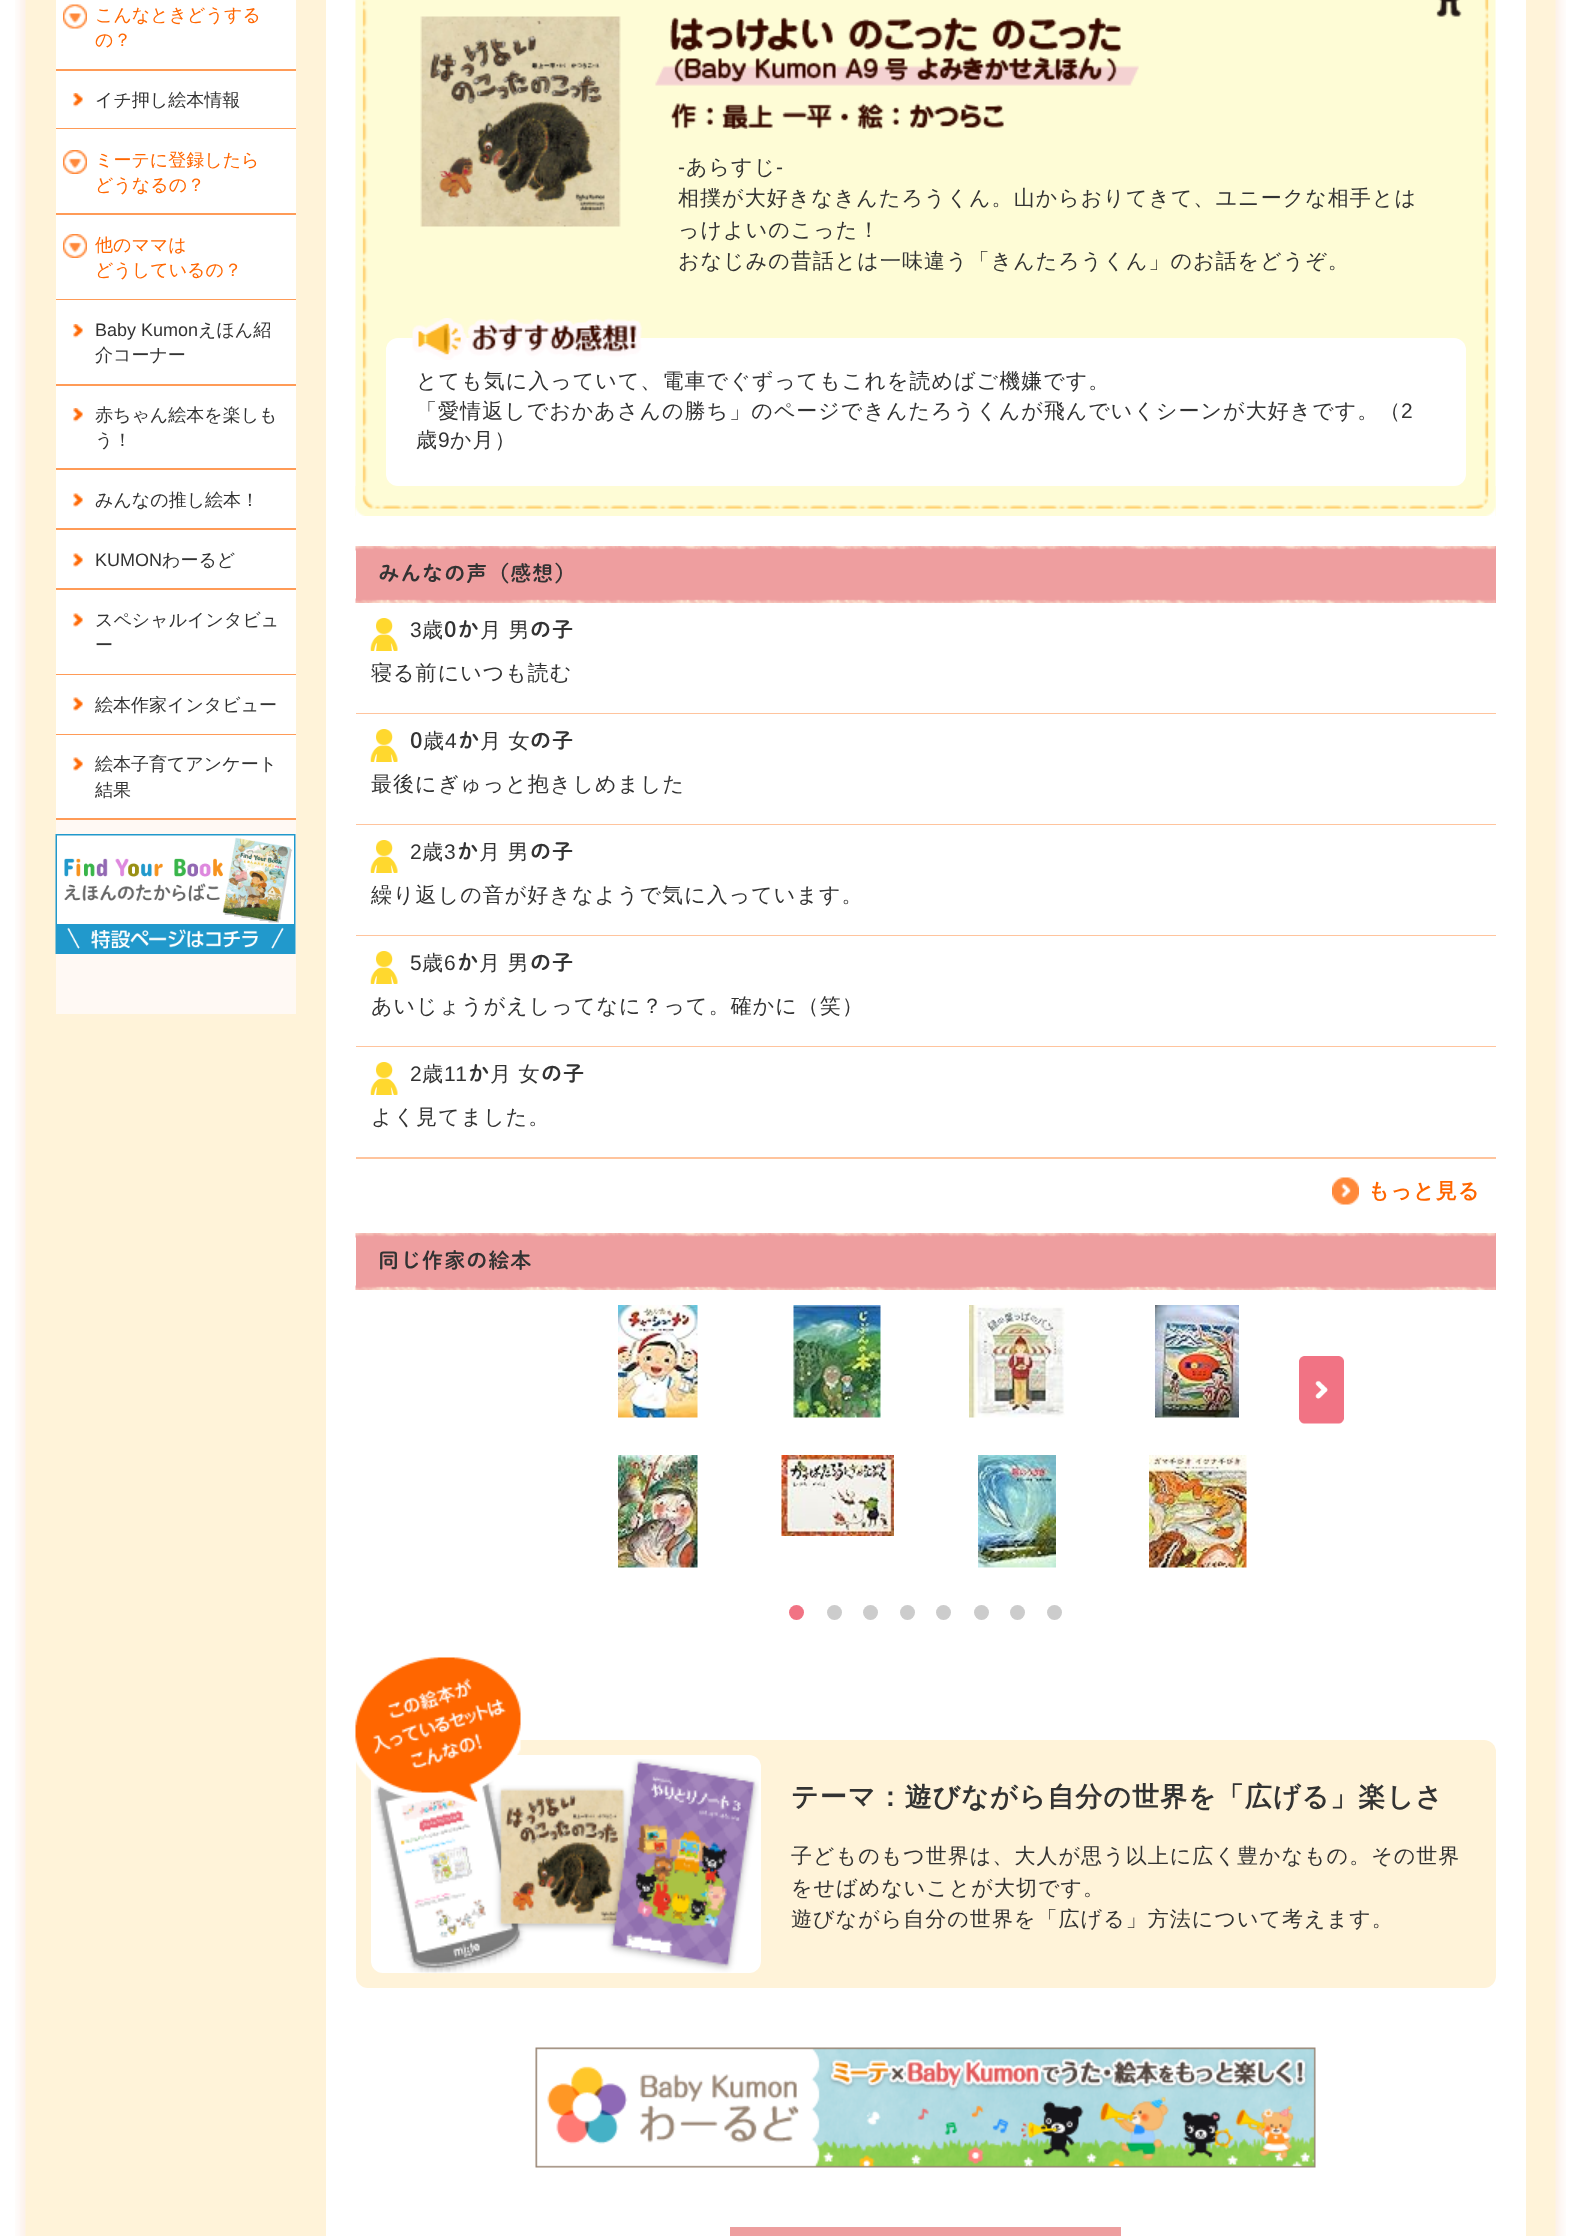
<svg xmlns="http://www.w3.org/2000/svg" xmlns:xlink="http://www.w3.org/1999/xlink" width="1580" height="2236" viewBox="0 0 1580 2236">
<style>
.cls-1{font:500 18px WenQuanYi Zen Hei;fill:#ff6600}
.cls-2{font:500 18px WenQuanYi Zen Hei;fill:#333333}
.cls-3{font:18px Liberation Sans;fill:#333333}
.cls-4{font:21px Liberation Sans;letter-spacing:1.05px;fill:#333333}
.cls-5{font:500 21px WenQuanYi Zen Hei;letter-spacing:1.05px;fill:#333333}
.cls-6{font:600 21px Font;letter-spacing:1.05px;fill:#333333}
.cls-7{font:bold 21px WenQuanYi Zen Hei;letter-spacing:1.05px;fill:#ff6600}
.cls-8{font:bold 27px WenQuanYi Zen Hei;letter-spacing:1.05px;fill:#333333}
</style>
<rect width="100%" height="100%" fill="#ffffff"/>
<image xlink:href="image0.png" x="15" y="0" width="1551" height="2236"/>
<rect fill="#fff9f4" x="56" y="820" width="240" height="194"/>
<rect fill="#ff9b57" x="56" y="69" width="240" height="2"/>
<rect fill="#ffffff" x="56" y="0" width="240" height="69"/>
<image xlink:href="image1.png" x="63" y="4" width="24" height="25"/>
<rect fill="#ff9b57" x="56" y="128" width="240" height="1"/>
<rect fill="#ffffff" x="56" y="71" width="240" height="57"/>
<image xlink:href="image2.png" x="73" y="93" width="10" height="14"/>
<rect fill="#ff9b57" x="56" y="213" width="240" height="2"/>
<rect fill="#ffffff" x="56" y="129" width="240" height="84"/>
<image xlink:href="image3.png" x="63" y="150" width="24" height="24"/>
<rect fill="#ff9b57" x="56" y="299" width="240" height="1"/>
<rect fill="#ffffff" x="56" y="215" width="240" height="84"/>
<image xlink:href="image3.png" x="63" y="234" width="24" height="24"/>
<rect fill="#ff9b57" x="56" y="384" width="240" height="2"/>
<rect fill="#ffffff" x="56" y="300" width="240" height="84"/>
<image xlink:href="image2.png" x="73" y="324" width="10" height="14"/>
<rect fill="#ff9b57" x="56" y="468" width="240" height="2"/>
<rect fill="#ffffff" x="56" y="386" width="240" height="82"/>
<image xlink:href="image2.png" x="73" y="408" width="10" height="14"/>
<rect fill="#ff9b57" x="56" y="528" width="240" height="2"/>
<rect fill="#ffffff" x="56" y="470" width="240" height="58"/>
<image xlink:href="image4.png" x="73" y="493" width="10" height="14"/>
<rect fill="#ff9b57" x="56" y="588" width="240" height="2"/>
<rect fill="#ffffff" x="56" y="530" width="240" height="58"/>
<image xlink:href="image4.png" x="73" y="553" width="10" height="14"/>
<rect fill="#ff9b57" x="56" y="674" width="240" height="1"/>
<rect fill="#ffffff" x="56" y="590" width="240" height="84"/>
<image xlink:href="image4.png" x="73" y="613" width="10" height="14"/>
<rect fill="#ff9b57" x="56" y="734" width="240" height="1"/>
<rect fill="#ffffff" x="56" y="675" width="240" height="59"/>
<image xlink:href="image4.png" x="73" y="697" width="10" height="14"/>
<rect fill="#ff9b57" x="56" y="818" width="240" height="2"/>
<rect fill="#ffffff" x="56" y="735" width="240" height="83"/>
<image xlink:href="image4.png" x="73" y="757" width="10" height="14"/>
<image xlink:href="image5.png" x="55" y="834" width="241" height="120"/>
<rect fill="#ffffff" x="326" y="0" width="1200" height="2236"/>
<image xlink:href="image6.png" x="355" y="0" width="1141" height="516"/>
<image xlink:href="image7.png" x="1436" y="0" width="26" height="17"/>
<image xlink:href="image8.png" x="420" y="16" width="201" height="211"/>
<image xlink:href="image9.png" x="655" y="17" width="484" height="112"/>
<rect fill="#ffffff" x="386" y="338" width="1080" height="148" rx="12"/>
<image xlink:href="image10.png" x="412" y="318" width="230" height="42"/>
<image xlink:href="image11.png" x="355" y="486" width="1141" height="30"/>
<rect fill="#ee9e9f" x="356" y="546" width="1140" height="57"/>
<image xlink:href="image12.png" x="355" y="546" width="1141" height="5"/>
<image xlink:href="image13.png" x="355" y="598" width="1141" height="5"/>
<rect fill="#ffc49d" x="356" y="713" width="1140" height="1"/>
<image xlink:href="image14.png" x="370" y="618" width="28" height="33"/>
<rect fill="#ffc49d" x="356" y="824" width="1140" height="1"/>
<image xlink:href="image15.png" x="370" y="729" width="28" height="33"/>
<rect fill="#ffc49d" x="356" y="935" width="1140" height="1"/>
<image xlink:href="image14.png" x="370" y="840" width="28" height="33"/>
<rect fill="#ffc49d" x="356" y="1046" width="1140" height="1"/>
<image xlink:href="image16.png" x="370" y="951" width="28" height="33"/>
<rect fill="#ffc49d" x="356" y="1157" width="1140" height="2"/>
<image xlink:href="image14.png" x="370" y="1062" width="28" height="33"/>
<image xlink:href="image17.png" x="1332" y="1177" width="27" height="28"/>
<rect fill="#ee9e9f" x="356" y="1233" width="1140" height="57"/>
<image xlink:href="image18.png" x="355" y="1233" width="1141" height="5"/>
<image xlink:href="image19.png" x="355" y="1285" width="1141" height="5"/>
<image xlink:href="image20.png" x="618" y="1305" width="80" height="113"/>
<image xlink:href="image21.png" x="793" y="1305" width="88" height="113"/>
<image xlink:href="image22.png" x="969" y="1305" width="96" height="113"/>
<image xlink:href="image23.png" x="1155" y="1305" width="84" height="113"/>
<image xlink:href="image24.png" x="618" y="1455" width="80" height="113"/>
<image xlink:href="image25.png" x="781" y="1455" width="113" height="81"/>
<image xlink:href="image26.png" x="978" y="1455" width="78" height="113"/>
<image xlink:href="image27.png" x="1149" y="1455" width="98" height="113"/>
<image xlink:href="image28.png" x="1299" y="1356" width="45" height="68"/>
<circle fill="#f17384" cx="796.5" cy="1612.5" r="7.5"/>
<circle fill="#cccccc" cx="834.5" cy="1612.5" r="7.5"/>
<circle fill="#cccccc" cx="870.5" cy="1612.5" r="7.5"/>
<circle fill="#cccccc" cx="907.5" cy="1612.5" r="7.5"/>
<circle fill="#cccccc" cx="943.5" cy="1612.5" r="7.5"/>
<circle fill="#cccccc" cx="981.5" cy="1612.5" r="7.5"/>
<circle fill="#cccccc" cx="1017.5" cy="1612.5" r="7.5"/>
<circle fill="#cccccc" cx="1054.5" cy="1612.5" r="7.5"/>
<rect fill="#fff3d9" x="356" y="1740" width="1140" height="248" rx="12"/>
<rect fill="#ffffff" x="371" y="1755" width="390" height="218" rx="12"/>
<image xlink:href="image30.png" x="374" y="1759" width="385" height="214"/>
<image xlink:href="image29.png" x="355" y="1657" width="166" height="149"/>
<image xlink:href="image31.png" x="535" y="2047" width="781" height="121"/>
<rect fill="#ee9e9f" x="730" y="2227" width="391" height="9"/>
<text class="cls-1"><tspan x="95" y="21">こんなときどうする</tspan><tspan x="95" y="46">の？</tspan></text>
<text class="cls-2" x="95" y="106">イチ押し絵本情報</text>
<text class="cls-1"><tspan x="95" y="166">ミーテに登録したら</tspan><tspan x="95" y="191">どうなるの？</tspan></text>
<text class="cls-1"><tspan x="95" y="251">他のママは</tspan><tspan x="95" y="276">どうしているの？</tspan></text>
<text class="cls-3" x="95" y="336">Baby Kumon</text>
<text class="cls-2" x="198" y="336">えほん紹</text>
<text class="cls-2" x="95" y="361">介コーナー</text>
<text class="cls-2"><tspan x="95" y="421">赤ちゃん絵本を楽しも</tspan><tspan x="95" y="446">う！</tspan></text>
<text class="cls-2" x="95" y="506">みんなの推し絵本！</text>
<text class="cls-3" x="95" y="566">KUMON</text>
<text class="cls-2" x="162" y="566">わーるど</text>
<text class="cls-2"><tspan x="95" y="626">スペシャルインタビュ</tspan><tspan x="95" y="651">ー</tspan></text>
<text class="cls-2" x="95" y="711">絵本作家インタビュー</text>
<text class="cls-2"><tspan x="95" y="770">絵本子育てアンケート</tspan><tspan x="95" y="796">結果</tspan></text>
<text class="cls-4" x="678" y="174">-</text>
<text class="cls-5" x="686" y="174">あらすじ</text>
<text class="cls-4" x="776" y="174">-</text>
<text class="cls-5"><tspan x="678" y="205">相撲が大好きなきんたろうくん。山からおりてきて、ユニークな相手とは</tspan><tspan x="678" y="237">っけよいのこった！</tspan><tspan x="678" y="268">おなじみの昔話とは一味違う「きんたろうくん」のお話をどうぞ。</tspan></text>
<text class="cls-5"><tspan x="416" y="388">とても気に入っていて、電車でぐずってもこれを読めばご機嫌です。</tspan><tspan x="416" y="418">「愛情返しでおかあさんの勝ち」のページできんたろうくんが飛んでいくシーンが大好きです。（</tspan></text>
<text class="cls-4" x="1401" y="418">2</text>
<text class="cls-5" x="416" y="447">歳</text>
<text class="cls-4" x="438" y="447">9</text>
<text class="cls-5" x="450" y="447">か月）</text>
<text class="cls-6" x="378" y="581">みんなの声（感想）</text>
<text class="cls-4" x="410" y="637">3</text>
<text class="cls-5" x="422" y="637">歳</text>
<text class="cls-6" x="444" y="637">0か</text>
<text class="cls-5" x="480" y="637" word-spacing="-1">月 男</text>
<text class="cls-6" x="530" y="637">の子</text>
<text class="cls-5" x="371" y="680">寝る前にいつも読む</text>
<text class="cls-6" x="410" y="748">0</text>
<text class="cls-5" x="423" y="748">歳</text>
<text class="cls-4" x="445" y="748">4</text>
<text class="cls-6" x="458" y="748">か</text>
<text class="cls-5" x="480" y="748" word-spacing="-1">月 女</text>
<text class="cls-6" x="530" y="748">の子</text>
<text class="cls-5" x="371" y="791">最後にぎゅっと抱きしめました</text>
<text class="cls-4" x="410" y="859">2</text>
<text class="cls-5" x="422" y="859">歳</text>
<text class="cls-4" x="444" y="859">3</text>
<text class="cls-6" x="457" y="859">か</text>
<text class="cls-5" x="479" y="859" word-spacing="-1">月 男</text>
<text class="cls-6" x="530" y="859">の子</text>
<text class="cls-5" x="371" y="902">繰り返しの音が好きなようで気に入っています。</text>
<text class="cls-4" x="410" y="970">5</text>
<text class="cls-5" x="422" y="970">歳</text>
<text class="cls-4" x="444" y="970">6</text>
<text class="cls-6" x="457" y="970">か</text>
<text class="cls-5" x="479" y="970" word-spacing="-1">月 男</text>
<text class="cls-6" x="530" y="970">の子</text>
<text class="cls-5" x="371" y="1013">あいじょうがえしってなに？って。確かに（笑）</text>
<text class="cls-4" x="410" y="1081">2</text>
<text class="cls-5" x="422" y="1081">歳</text>
<text class="cls-4" x="444" y="1081">11</text>
<text class="cls-6" x="468" y="1081">か</text>
<text class="cls-5" x="490" y="1081" word-spacing="-1">月 女</text>
<text class="cls-6" x="541" y="1081">の子</text>
<text class="cls-5" x="371" y="1124">よく見てました。</text>
<text class="cls-7" x="1368" y="1198">もっと見る</text>
<text class="cls-6" x="378" y="1268">同じ作家の絵本</text>
<text class="cls-8" x="791" y="1806">テーマ：遊びながら自分の世界を「広げる」楽しさ</text>
<text class="cls-5"><tspan x="791" y="1863">子どものもつ世界は、大人が思う以上に広く豊かなもの。その世界</tspan><tspan x="791" y="1895">をせばめないことが大切です。</tspan><tspan x="791" y="1926">遊びながら自分の世界を「広げる」方法について考えます。</tspan></text>
</svg>
